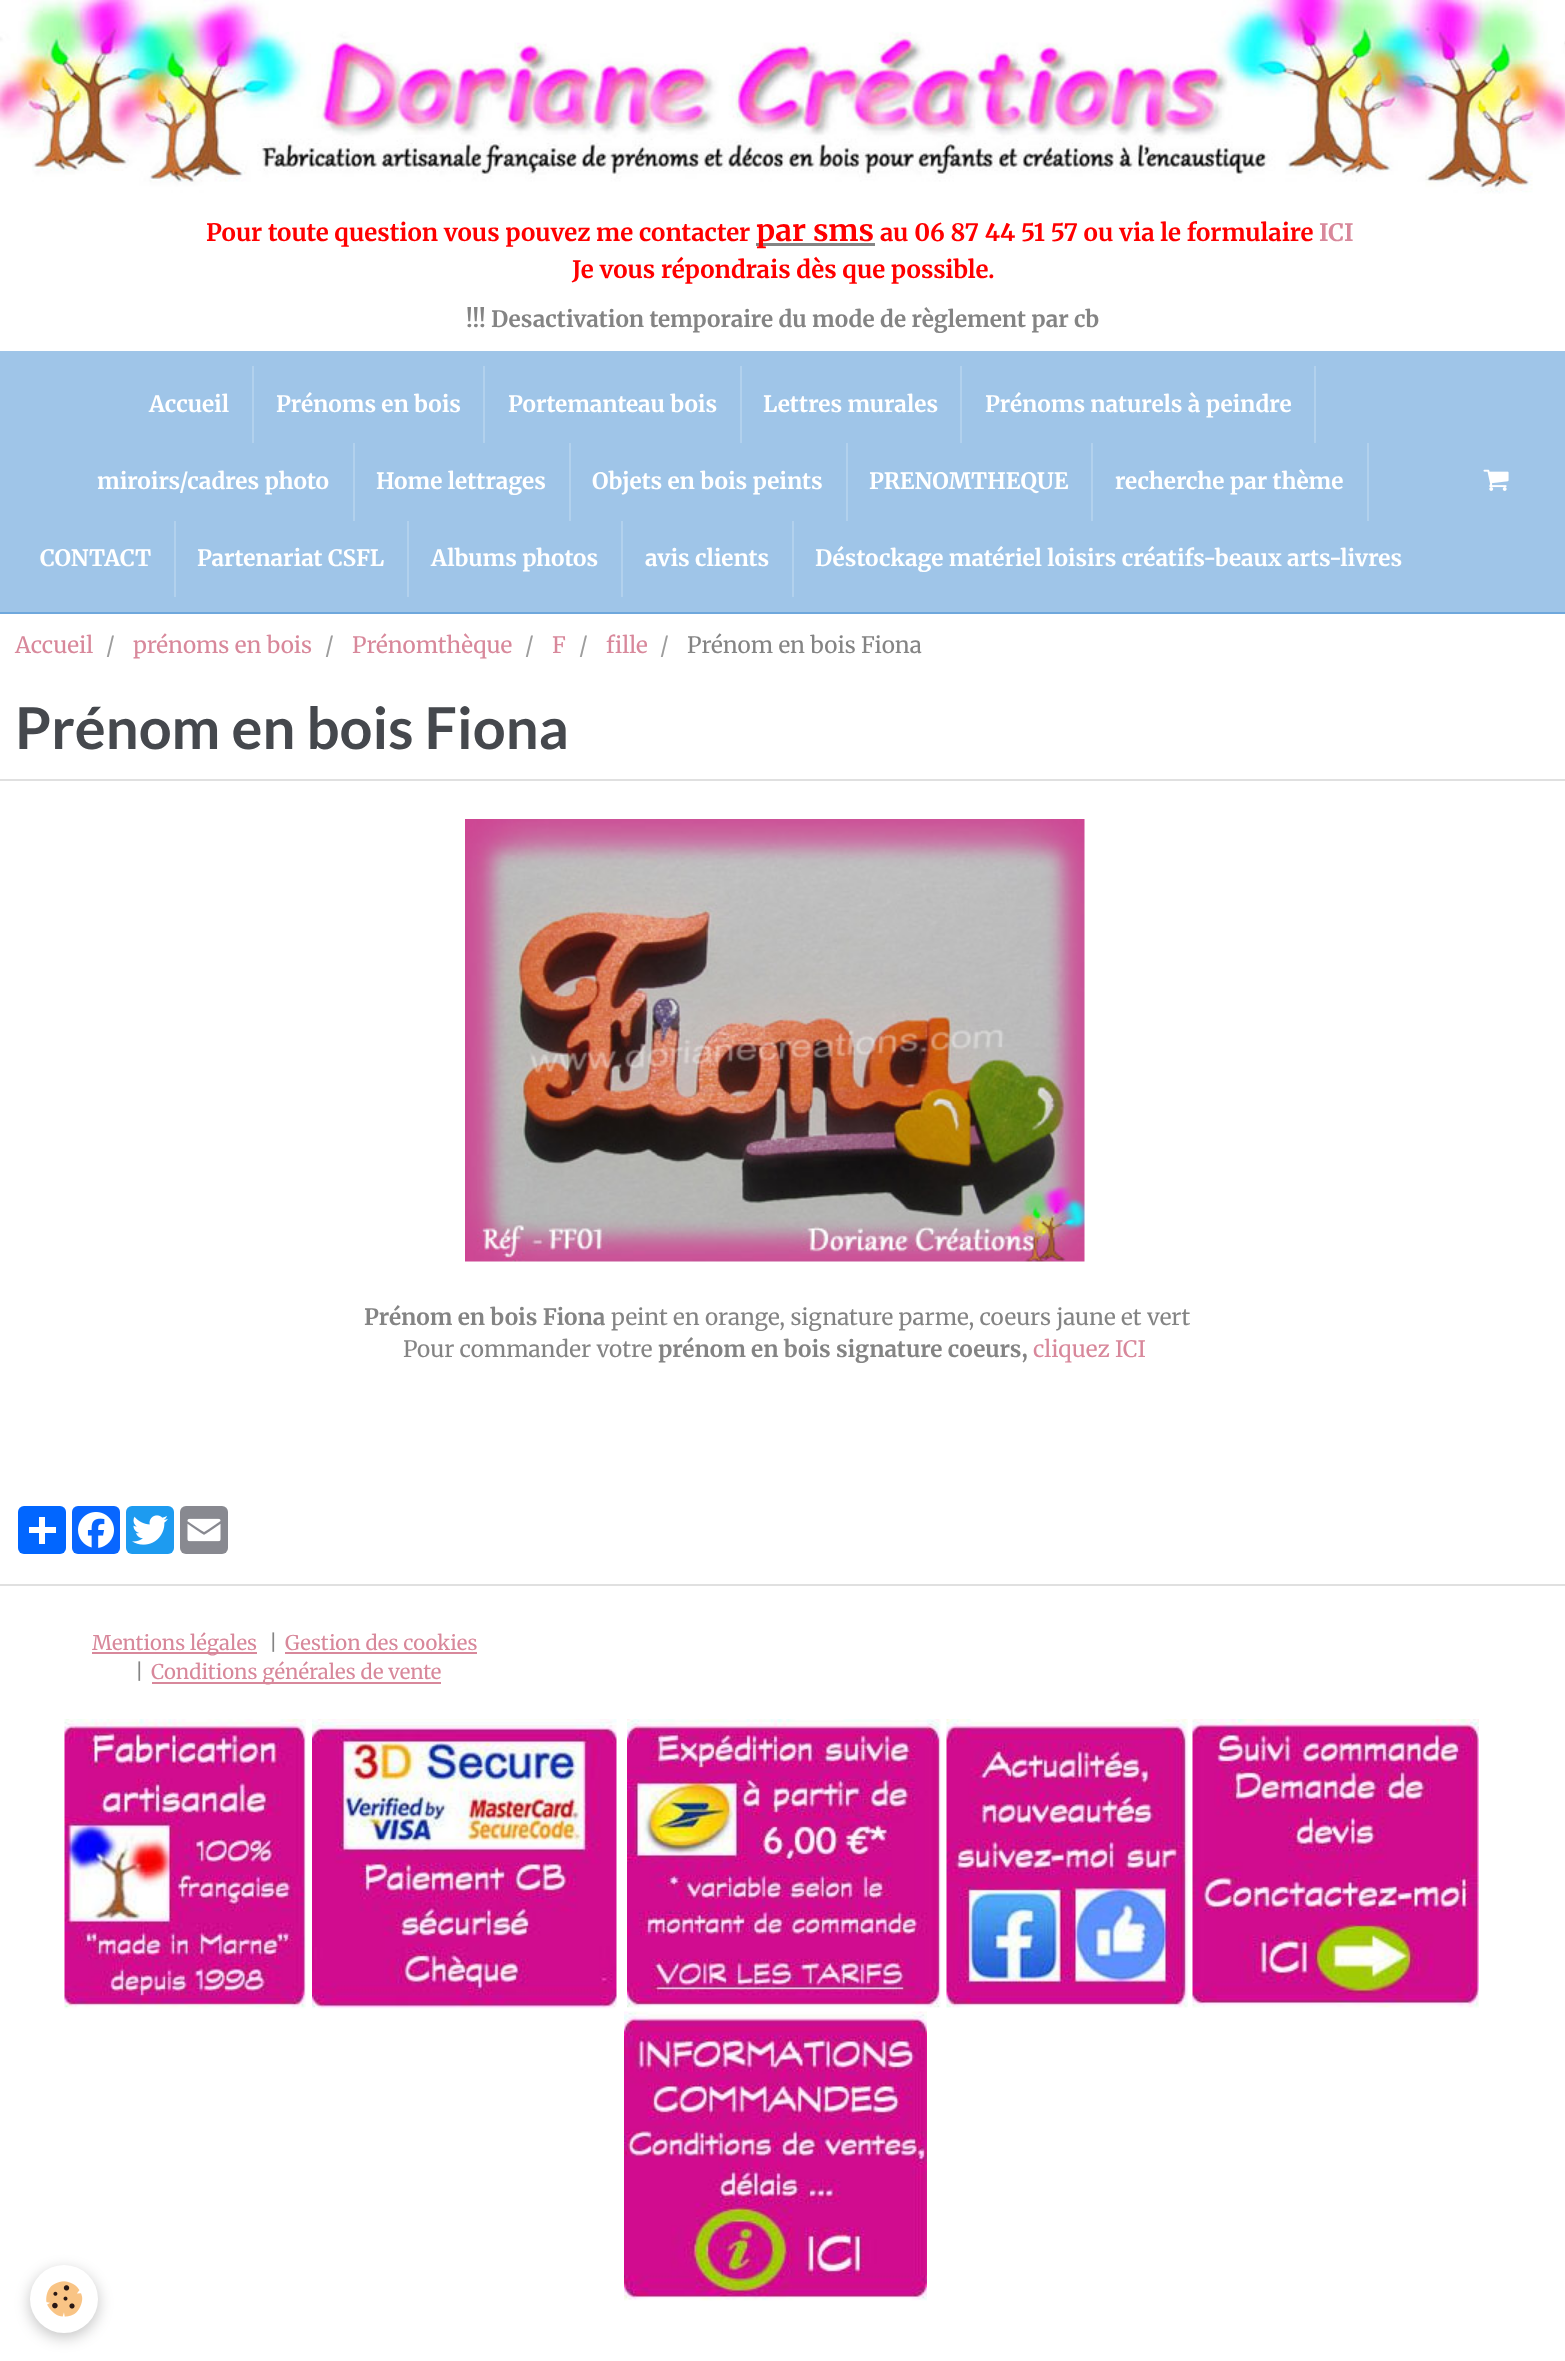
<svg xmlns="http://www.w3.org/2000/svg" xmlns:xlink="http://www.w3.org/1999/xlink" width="1565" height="2361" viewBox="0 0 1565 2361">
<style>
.cls-1{font:bold 24px Merriweather;fill:#ff0000}
.cls-2{font:bold 30px Merriweather;fill:#ff0000}
.cls-3{font:bold 24px Merriweather;fill:#d8889b}
.cls-4{font:bold 22.5px Merriweather;fill:#848484}
.cls-5{font:bold 22.5px Merriweather;fill:#ffffff}
.cls-6{font:22.5px Merriweather;fill:#d8889b}
.cls-7{font:22.5px Merriweather;fill:#9d9d9d}
.cls-8{font:22.5px Merriweather;fill:#848484}
.cls-9{font:bold 57.9px Lato;fill:#45484d}
.cls-10{font:20.25px Merriweather;fill:#d8889b}
.cls-11{font:20.25px Merriweather;fill:#848484}
</style>
<rect width="100%" height="100%" fill="#ffffff"/>
<image xlink:href="image0.png" x="0" y="0" width="1565" height="194"/>
<rect fill="#848484" x="756" y="243" width="119" height="3"/>
<rect fill="#9fc5e8" x="0" y="351" width="1565" height="261"/>
<rect fill="#6fa8dc" x="0" y="612" width="1565" height="2"/>
<rect fill="#b2d1ed" x="252" y="366" width="2" height="77"/>
<rect fill="#b2d1ed" x="483" y="366" width="2" height="77"/>
<rect fill="#b2d1ed" x="740" y="366" width="2" height="77"/>
<rect fill="#b2d1ed" x="960" y="366" width="2" height="77"/>
<rect fill="#b2d1ed" x="1314" y="366" width="2" height="77"/>
<rect fill="#b2d1ed" x="353" y="443" width="2" height="78"/>
<rect fill="#b2d1ed" x="569" y="443" width="2" height="78"/>
<rect fill="#b2d1ed" x="846" y="443" width="2" height="78"/>
<rect fill="#b2d1ed" x="1091" y="443" width="2" height="78"/>
<rect fill="#b2d1ed" x="1367" y="443" width="2" height="78"/>
<rect fill="#b2d1ed" x="174" y="521" width="2" height="76"/>
<rect fill="#b2d1ed" x="407" y="521" width="2" height="76"/>
<rect fill="#b2d1ed" x="621" y="521" width="2" height="76"/>
<rect fill="#b2d1ed" x="792" y="521" width="2" height="76"/>
<image xlink:href="image1.png" x="1483" y="469" width="26" height="22"/>
<rect fill="#e0e0e0" x="0" y="779" width="1565" height="2"/>
<image xlink:href="image2.png" x="465" y="819" width="620" height="443"/>
<rect fill="#0166ff" x="18" y="1506" width="48" height="48" rx="6"/>
<rect fill="#ffffff" x="39" y="1517" width="6" height="27"/>
<rect fill="#ffffff" x="29" y="1527" width="27" height="6"/>
<rect fill="#0866ff" x="72" y="1506" width="48" height="48" rx="6"/>
<image xlink:href="image3.png" x="78" y="1512" width="36" height="36"/>
<rect fill="#1d9bf0" x="126" y="1506" width="48" height="48" rx="6"/>
<image xlink:href="image4.png" x="132" y="1515" width="36" height="30"/>
<rect fill="#888990" x="180" y="1506" width="48" height="48" rx="6"/>
<image xlink:href="image5.png" x="187" y="1518" width="34" height="24"/>
<rect fill="#e0e0e0" x="0" y="1584" width="1565" height="2"/>
<rect fill="#d8889b" x="92" y="1652" width="165" height="2"/>
<rect fill="#d8889b" x="285" y="1652" width="192" height="2"/>
<rect fill="#d8889b" x="152" y="1682" width="289" height="2"/>
<image xlink:href="image6.png" x="64" y="1719" width="242" height="290"/>
<image xlink:href="image7.png" x="312" y="1719" width="305" height="290"/>
<image xlink:href="image8.png" x="627" y="1719" width="314" height="289"/>
<image xlink:href="image9.png" x="946" y="1719" width="242" height="289"/>
<image xlink:href="image10.png" x="1192" y="1719" width="287" height="289"/>
<image xlink:href="image11.png" x="624" y="2011" width="303" height="290"/>
<rect fill="#000000" fill-opacity="0.24" filter="blur(7.5px)" x="30" y="2270" width="68" height="67" rx="33.5"/>
<circle fill="#ffffff" cx="64" cy="2299" r="34"/>
<image xlink:href="image12.png" x="46" y="2281" width="37" height="36"/>
<text class="cls-1" x="206" y="241">Pour toute question vous pouvez me contacter</text>
<text class="cls-2" x="756" y="241">par sms</text>
<text class="cls-1" x="880" y="241">au 06 87 44 51 57 ou via le formulaire</text>
<text class="cls-3" x="1319" y="241">ICI</text>
<text class="cls-1" x="572" y="278">Je vous répondrais dès que possible.</text>
<text class="cls-4" x="466" y="327">!!! Desactivation temporaire du mode de règlement par cb</text>
<text class="cls-5" x="149" y="412">Accueil</text>
<text class="cls-5" x="276" y="412">Prénoms en bois</text>
<text class="cls-5" x="508" y="412">Portemanteau bois</text>
<text class="cls-5" x="763" y="412">Lettres murales</text>
<text class="cls-5" x="985" y="412">Prénoms naturels à peindre</text>
<text class="cls-5" x="97" y="489">miroirs/cadres photo</text>
<text class="cls-5" x="376" y="489">Home lettrages</text>
<text class="cls-5" x="592" y="489">Objets en bois peints</text>
<text class="cls-5" x="869" y="489">PRENOMTHEQUE</text>
<text class="cls-5" x="1115" y="489">recherche par thème</text>
<text class="cls-5" x="40" y="566">CONTACT</text>
<text class="cls-5" x="197" y="566">Partenariat CSFL</text>
<text class="cls-5" x="431" y="566">Albums photos</text>
<text class="cls-5" x="645" y="566">avis clients</text>
<text class="cls-5" x="815" y="566">Déstockage matériel loisirs créatifs-beaux arts-livres</text>
<text class="cls-6" x="15" y="653">Accueil</text>
<text class="cls-7" x="106" y="653">/</text>
<text class="cls-6" x="133" y="653">prénoms en bois</text>
<text class="cls-7" x="325" y="653">/</text>
<text class="cls-6" x="352" y="653">Prénomthèque</text>
<text class="cls-7" x="525" y="653">/</text>
<text class="cls-6" x="552" y="653">F</text>
<text class="cls-7" x="579" y="653">/</text>
<text class="cls-6" x="606" y="653">fille</text>
<text class="cls-7" x="660" y="653">/</text>
<text class="cls-8" x="687" y="653">Prénom en bois Fiona</text>
<text class="cls-9" x="15" y="749">Prénom en bois Fiona</text>
<text class="cls-4" x="364" y="1325">Prénom en bois Fiona</text>
<text class="cls-8" x="611" y="1325">peint en orange, signature parme, coeurs jaune et vert</text>
<text class="cls-8" x="403" y="1357">Pour commander votre</text>
<text class="cls-4" x="658" y="1357">prénom en bois signature coeurs,</text>
<text class="cls-6" x="1033" y="1357">cliquez ICI</text>
<text class="cls-10" x="92" y="1650">Mentions légales</text>
<text class="cls-11" x="269" y="1650">|</text>
<text class="cls-10" x="285" y="1650">Gestion des cookies</text>
<text class="cls-11" x="135" y="1679">|</text>
<text class="cls-10" x="151" y="1679">Conditions générales de vente</text>
</svg>
